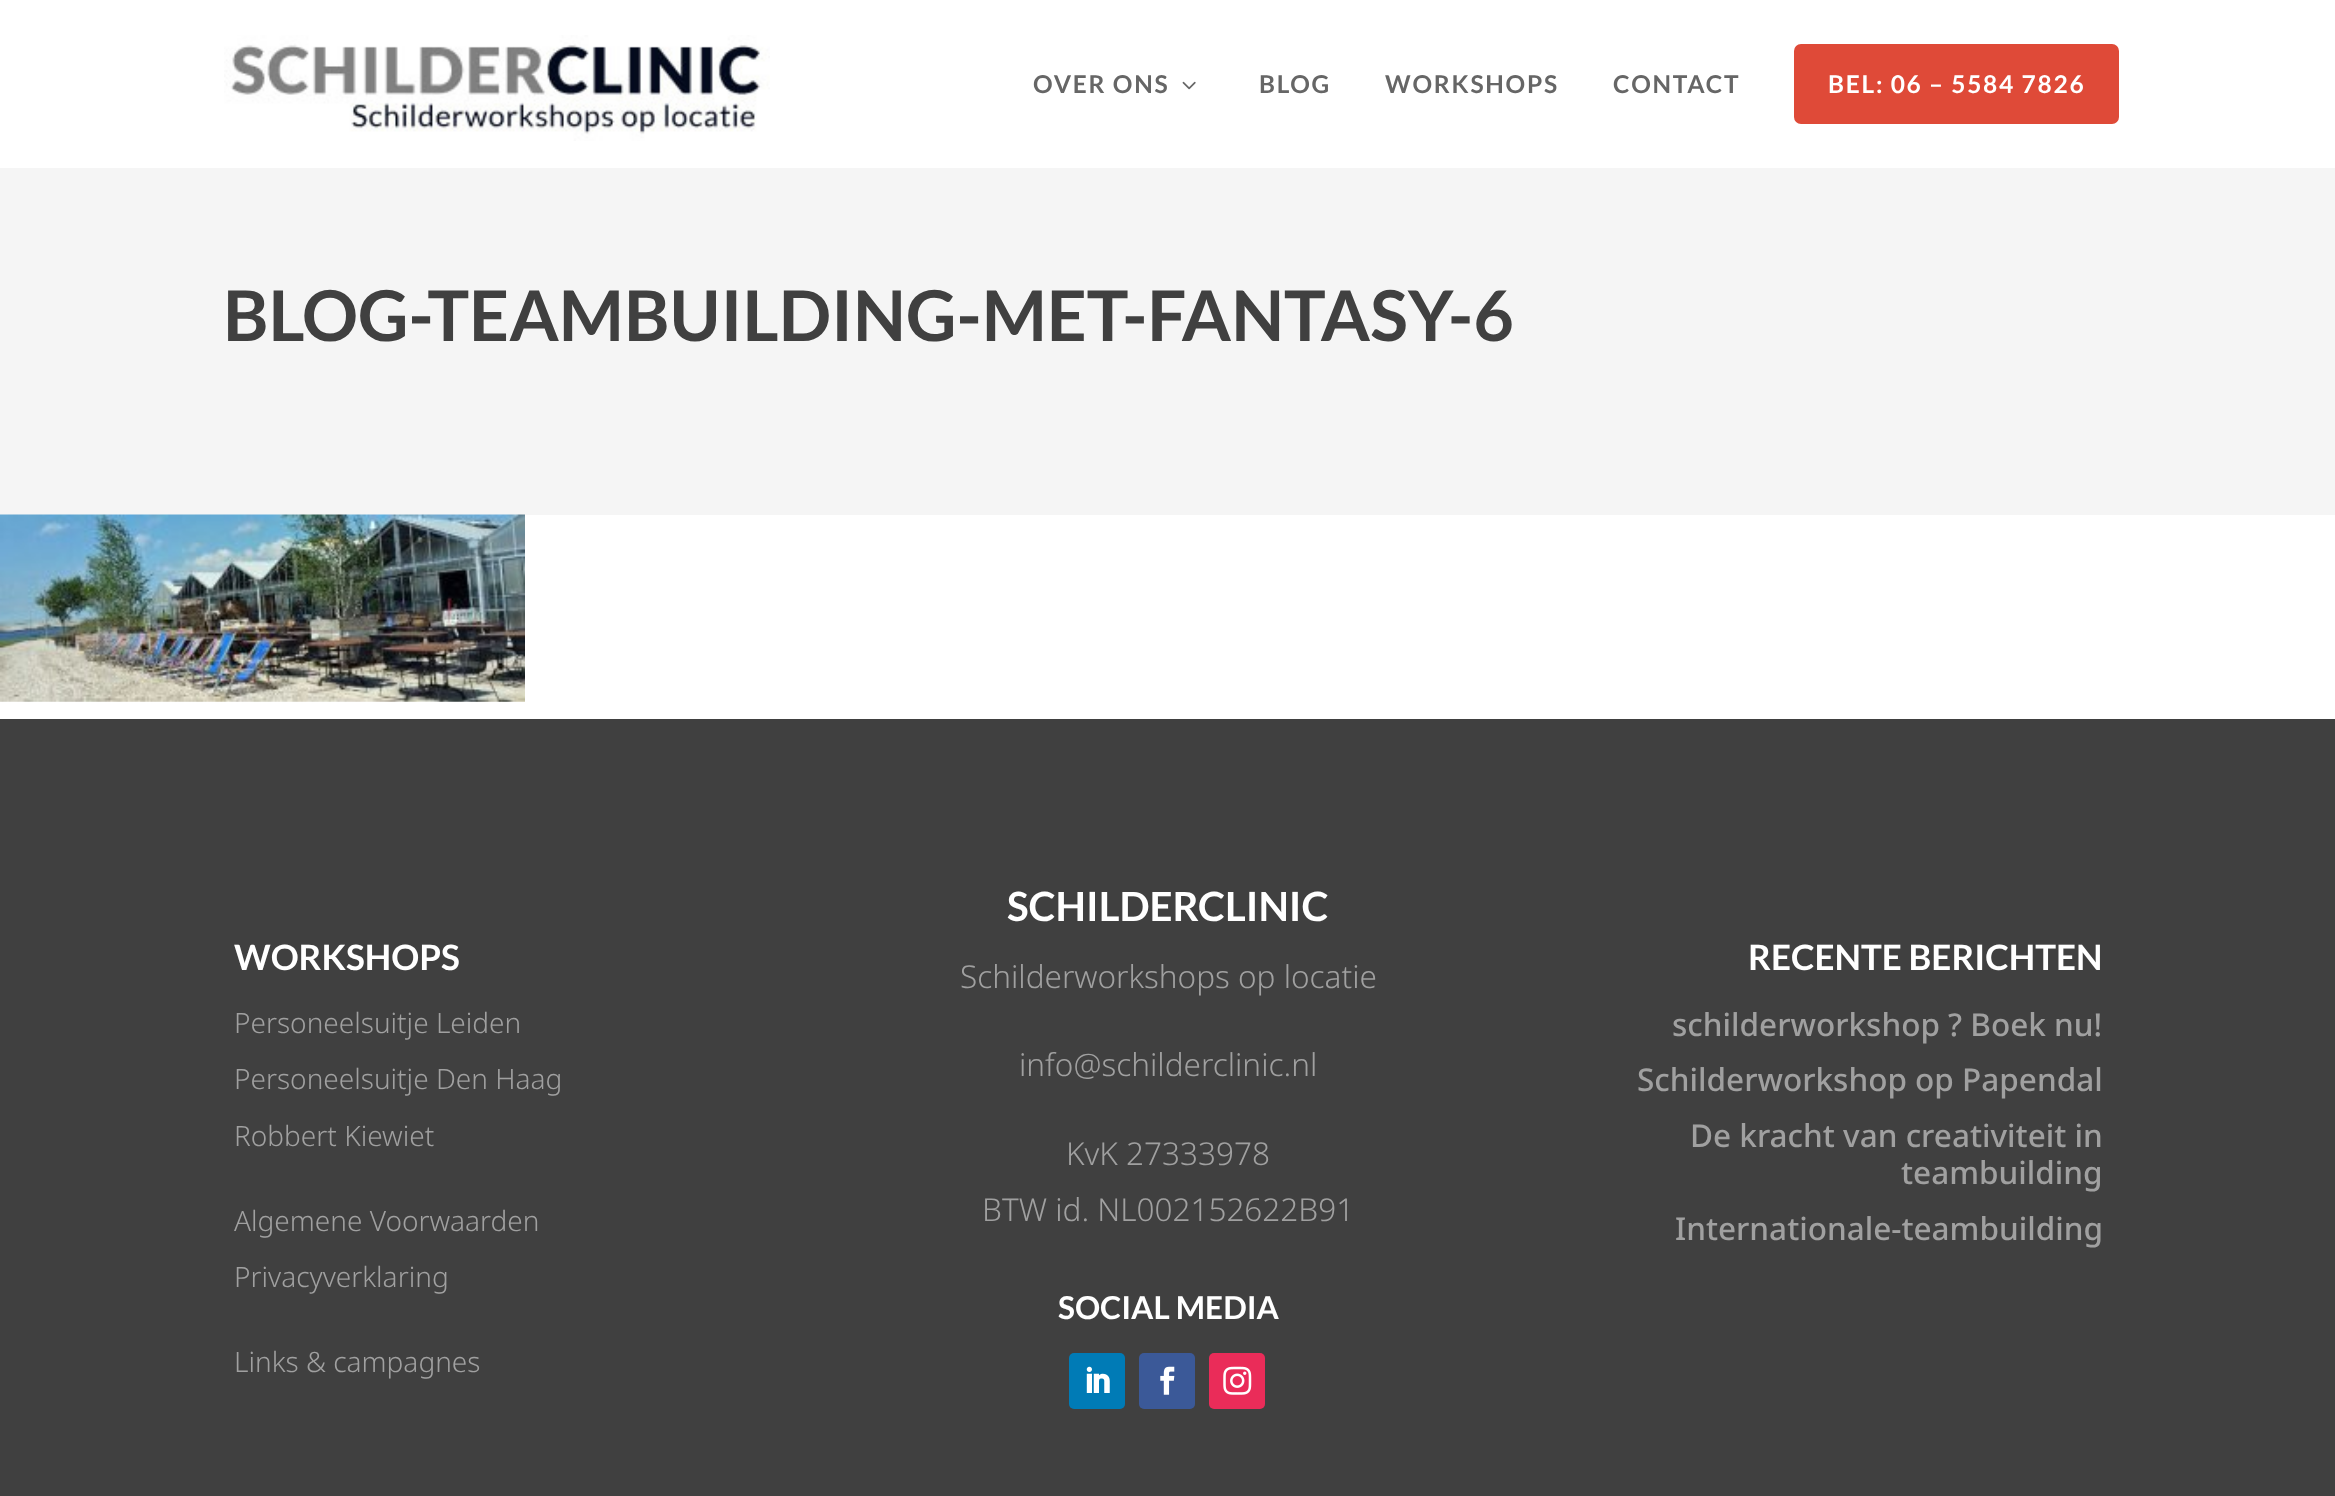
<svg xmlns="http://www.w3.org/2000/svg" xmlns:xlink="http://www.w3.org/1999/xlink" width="2335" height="1496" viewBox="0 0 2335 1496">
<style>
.cls-1{font:bold 24.5px Lato;letter-spacing:1.75px;fill:#666666}
.cls-2{font:bold 24.5px Lato;letter-spacing:1.75px;fill:#ffffff}
.cls-3{font:bold 70px Lato;fill:#404040}
.cls-4{font:bold 35px Lato;fill:#ffffff}
.cls-5{font:300 28px Noto Sans;fill:#a0a0a0}
.cls-6{font:bold 40.25px Lato;fill:#ffffff}
.cls-7{font:300 31.5px Noto Sans;fill:#a0a0a0}
.cls-8{font:bold 31.5px Lato;fill:#ffffff}
.cls-9{font:500 31.5px Noto Sans;fill:#a0a0a0}
</style>
<rect width="100%" height="100%" fill="#ffffff"/>
<image xlink:href="image0.png" x="224" y="35" width="546" height="106"/>
<image xlink:href="image1.png" x="1182" y="81" width="14" height="9"/>
<rect fill="#df4a38" stroke="#df4a38" stroke-width="7" x="1797.5" y="47.5" width="318" height="73" rx="3.5"/>
<rect fill="#f5f5f5" x="0" y="168" width="2335" height="347"/>
<image xlink:href="image2.png" x="0" y="514" width="525" height="188"/>
<rect fill="#404040" x="0" y="719" width="2335" height="777"/>
<rect fill="#007bb6" x="1069" y="1353" width="56" height="56" rx="5"/>
<image xlink:href="image3.png" x="1086" y="1366" width="24" height="27"/>
<rect fill="#3b5998" x="1139" y="1353" width="56" height="56" rx="5"/>
<image xlink:href="image4.png" x="1160" y="1366" width="15" height="29"/>
<rect fill="#ea2c59" x="1209" y="1353" width="56" height="56" rx="5"/>
<image xlink:href="image5.png" x="1223" y="1366" width="29" height="29"/>
<text class="cls-1" x="1033" y="93">OVER ONS</text>
<text class="cls-1" x="1259" y="93">BLOG</text>
<text class="cls-1" x="1385" y="93">WORKSHOPS</text>
<text class="cls-1" x="1613" y="93">CONTACT</text>
<text class="cls-2" x="1828" y="93">BEL: 06 – 5584 7826</text>
<text class="cls-3" x="223" y="341">BLOG-TEAMBUILDING-MET-FANTASY-6</text>
<text class="cls-4" x="234" y="970">WORKSHOPS</text>
<text class="cls-5" x="234" y="1033">Personeelsuitje Leiden</text>
<text class="cls-5" x="234" y="1089">Personeelsuitje Den Haag</text>
<text class="cls-5" x="234" y="1146">Robbert Kiewiet</text>
<text class="cls-5" x="234" y="1231">Algemene Voorwaarden</text>
<text class="cls-5" x="234" y="1287">Privacyverklaring</text>
<text class="cls-5" x="234" y="1372">Links &amp; campagnes</text>
<text class="cls-6" x="1007" y="921">SCHILDERCLINIC</text>
<text class="cls-7" x="960" y="988">Schilderworkshops op locatie</text>
<text class="cls-7" x="1019" y="1076">info@schilderclinic.nl</text>
<text class="cls-7" x="1066" y="1165">KvK 27333978</text>
<text class="cls-7" x="982" y="1221">BTW id. NL002152622B91</text>
<text class="cls-8" x="1058" y="1319">SOCIAL MEDIA</text>
<text class="cls-4" x="1748" y="970">RECENTE BERICHTEN</text>
<text class="cls-9" x="1672" y="1036">schilderworkshop ? Boek nu!</text>
<text class="cls-9" x="1637" y="1091">Schilderworkshop op Papendal</text>
<text class="cls-9" x="1690" y="1147">De kracht van creativiteit in</text>
<text class="cls-9" x="1901" y="1184">teambuilding</text>
<text class="cls-9" x="1675" y="1240">Internationale-teambuilding</text>
</svg>
